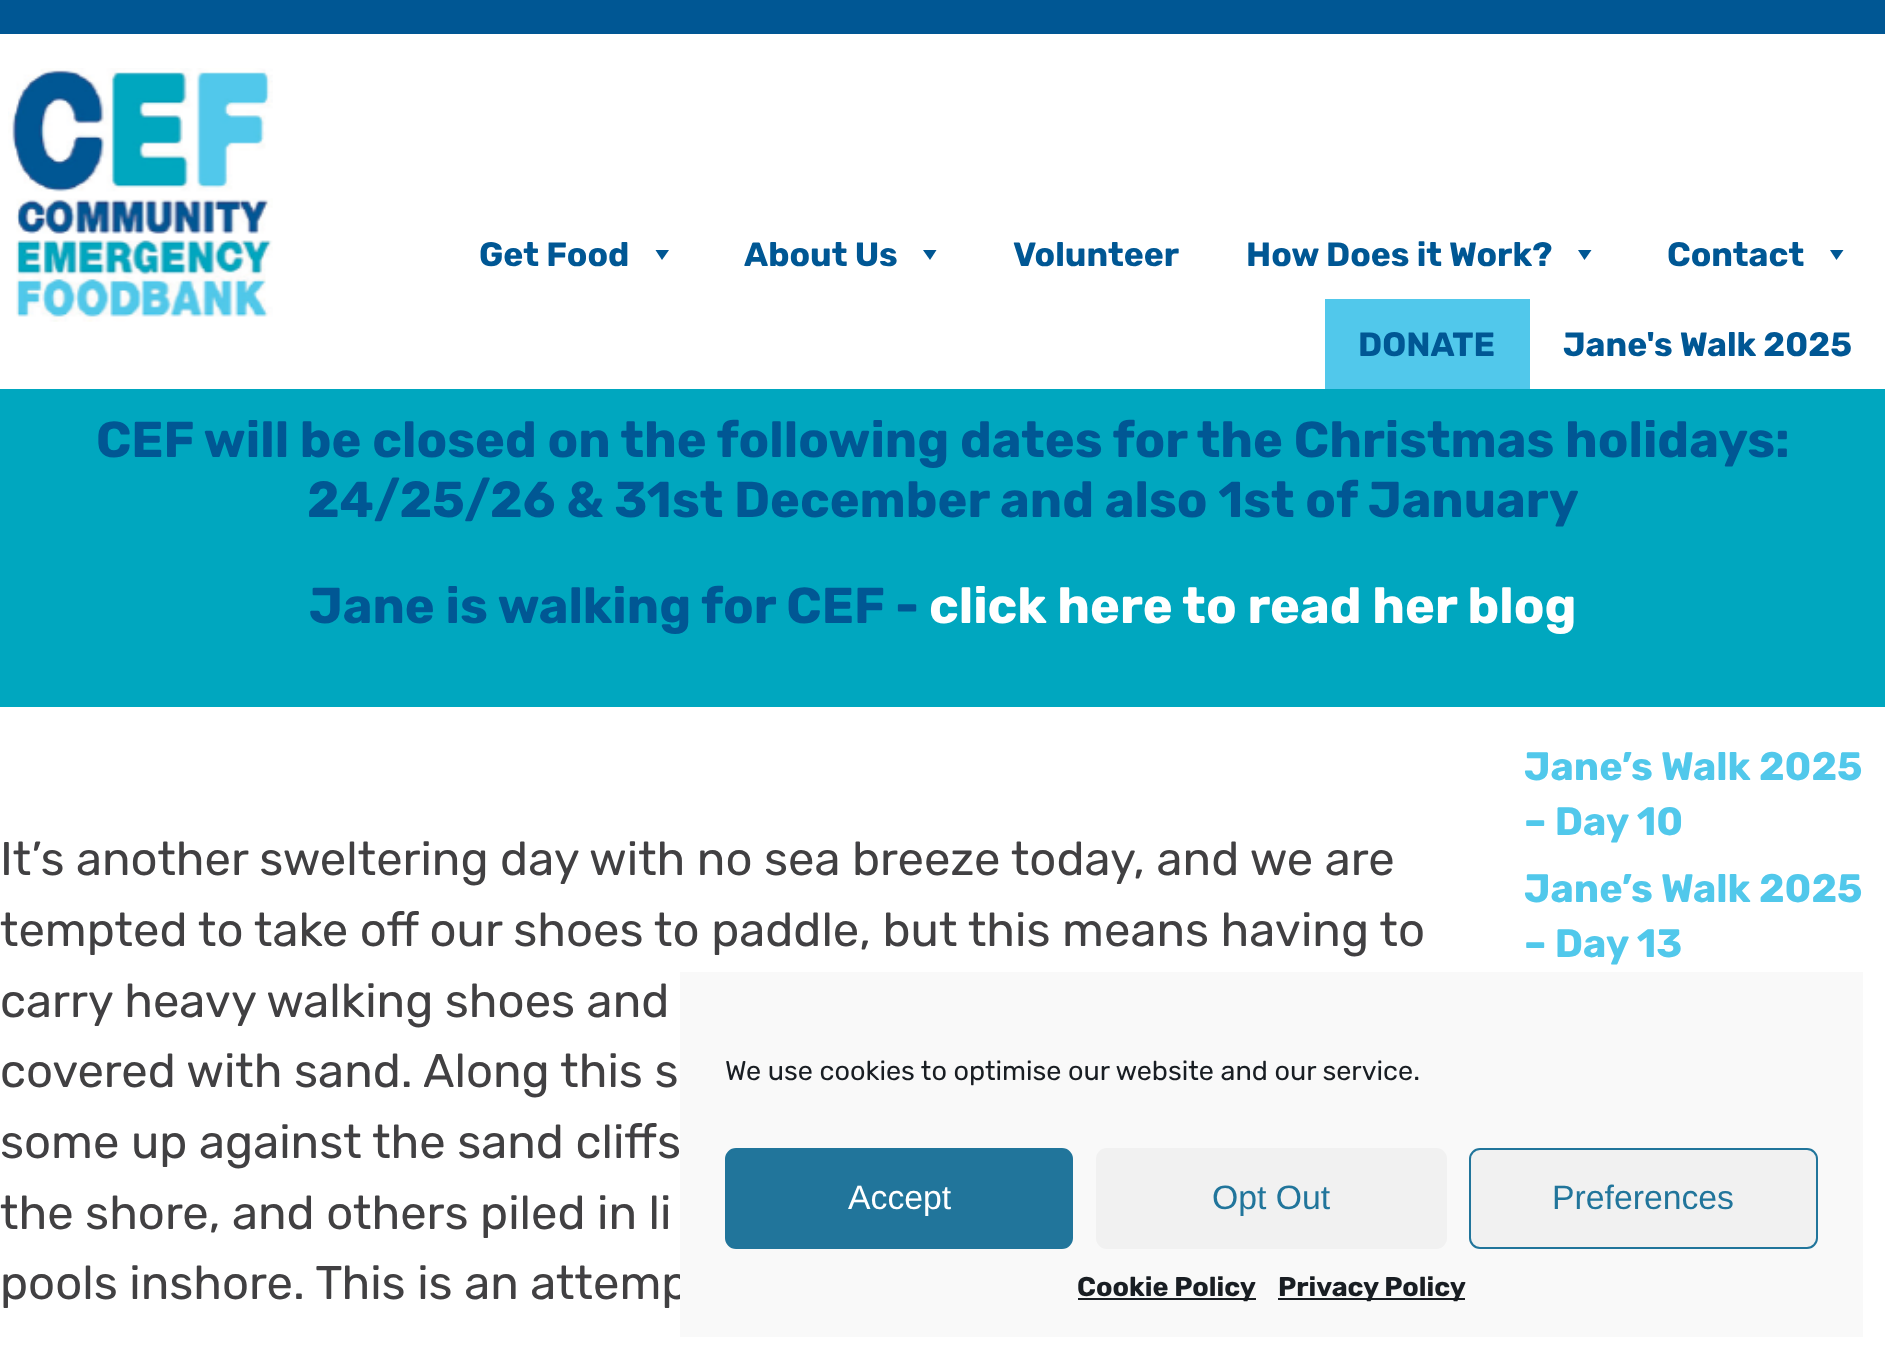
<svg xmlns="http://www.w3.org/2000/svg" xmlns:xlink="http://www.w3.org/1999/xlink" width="1885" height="1359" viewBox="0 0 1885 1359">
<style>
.cls-1{font:bold 33.75px Rubik;fill:#005794}
.cls-2{font:bold 50.4px Rubik;fill:#005794}
.cls-3{font:bold 50.4px Rubik;fill:#ffffff}
.cls-4{font:47.15px Rubik;fill:#414042}
.cls-5{font:bold 39.5px Rubik;fill:#51c8eb}
.cls-6{font:27px Rubik;fill:#191e23}
.cls-7{font:33.75px Liberation Sans;fill:#ffffff}
.cls-8{font:33.75px Liberation Sans;fill:#21759b}
.cls-9{font:bold 27px Rubik;fill:#191e23}
</style>
<rect width="100%" height="100%" fill="#ffffff"/>
<rect fill="#005794" x="0" y="0" width="1885" height="34"/>
<image xlink:href="image0.png" x="8" y="68" width="265" height="254"/>
<path fill="#005794" d="M669 250L662 260L655.5 250Z"/>
<path fill="#005794" d="M936.5 250L930 260L923 250Z"/>
<path fill="#005794" d="M1591.5 250L1584.5 260L1578 250Z"/>
<path fill="#005794" d="M1843.5 250L1836.5 260L1830 250Z"/>
<rect fill="#51c8eb" x="1325" y="299" width="205" height="90"/>
<rect fill="#00a7bf" x="0" y="389" width="1885" height="318"/>
<text class="cls-1" x="479" y="266">Get Food</text>
<text class="cls-1" x="744" y="266">About Us</text>
<text class="cls-1" x="1013" y="266">Volunteer</text>
<text class="cls-1" x="1246" y="266">How Does it Work?</text>
<text class="cls-1" x="1667" y="266">Contact</text>
<text class="cls-1" x="1358" y="356">DONATE</text>
<text class="cls-1" x="1563" y="356">Jane's Walk 2025</text>
<text class="cls-2" x="96" y="457">CEF will be closed on the following dates for the Christmas holidays:</text>
<text class="cls-2" x="307" y="517">24/25/26 &amp; 31st December and also 1st of January</text>
<text class="cls-2" x="309" y="623">Jane is walking for CEF -</text>
<text class="cls-3" x="929" y="623">click here to read her blog</text>
<text class="cls-4"><tspan x="0" y="875">It’s another sweltering day with no sea breeze today, and we are</tspan><tspan x="0" y="946">tempted to take off our shoes to paddle, but this means having to</tspan><tspan x="0" y="1017">carry heavy walking shoes and</tspan><tspan x="0" y="1087">covered with sand. Along this s</tspan><tspan x="0" y="1158">some up against the sand cliffs</tspan><tspan x="0" y="1229">the shore, and others piled in li</tspan><tspan x="0" y="1299">pools inshore. This is an attemp</tspan></text>
<text class="cls-5"><tspan x="1524" y="780">Jane’s Walk 2025</tspan><tspan x="1524" y="835">– Day 10</tspan><tspan x="1524" y="902">Jane’s Walk 2025</tspan><tspan x="1524" y="957">– Day 13</tspan></text>
<rect fill="#f9f9f9" x="680" y="972" width="1183" height="365"/>
<text class="cls-6" x="725" y="1080">We use cookies to optimise our website and our service.</text>
<rect fill="#21759b" stroke="#21759b" stroke-width="2" x="726" y="1149" width="346" height="99" rx="10"/>
<text class="cls-7" x="848" y="1209">Accept</text>
<rect fill="#f1f1f1" x="1096" y="1148" width="351" height="101" rx="11"/>
<text class="cls-8" x="1212" y="1209">Opt Out</text>
<rect fill="#f1f1f1" stroke="#21759b" stroke-width="2" x="1470" y="1149" width="347" height="99" rx="10"/>
<text class="cls-8" x="1552" y="1209">Preferences</text>
<rect fill="#191e23" x="1078" y="1298" width="178" height="2"/>
<text class="cls-9" x="1077" y="1296">Cookie Policy</text>
<rect fill="#191e23" x="1278" y="1298" width="187" height="2"/>
<text class="cls-9" x="1278" y="1296">Privacy Policy</text>
</svg>
